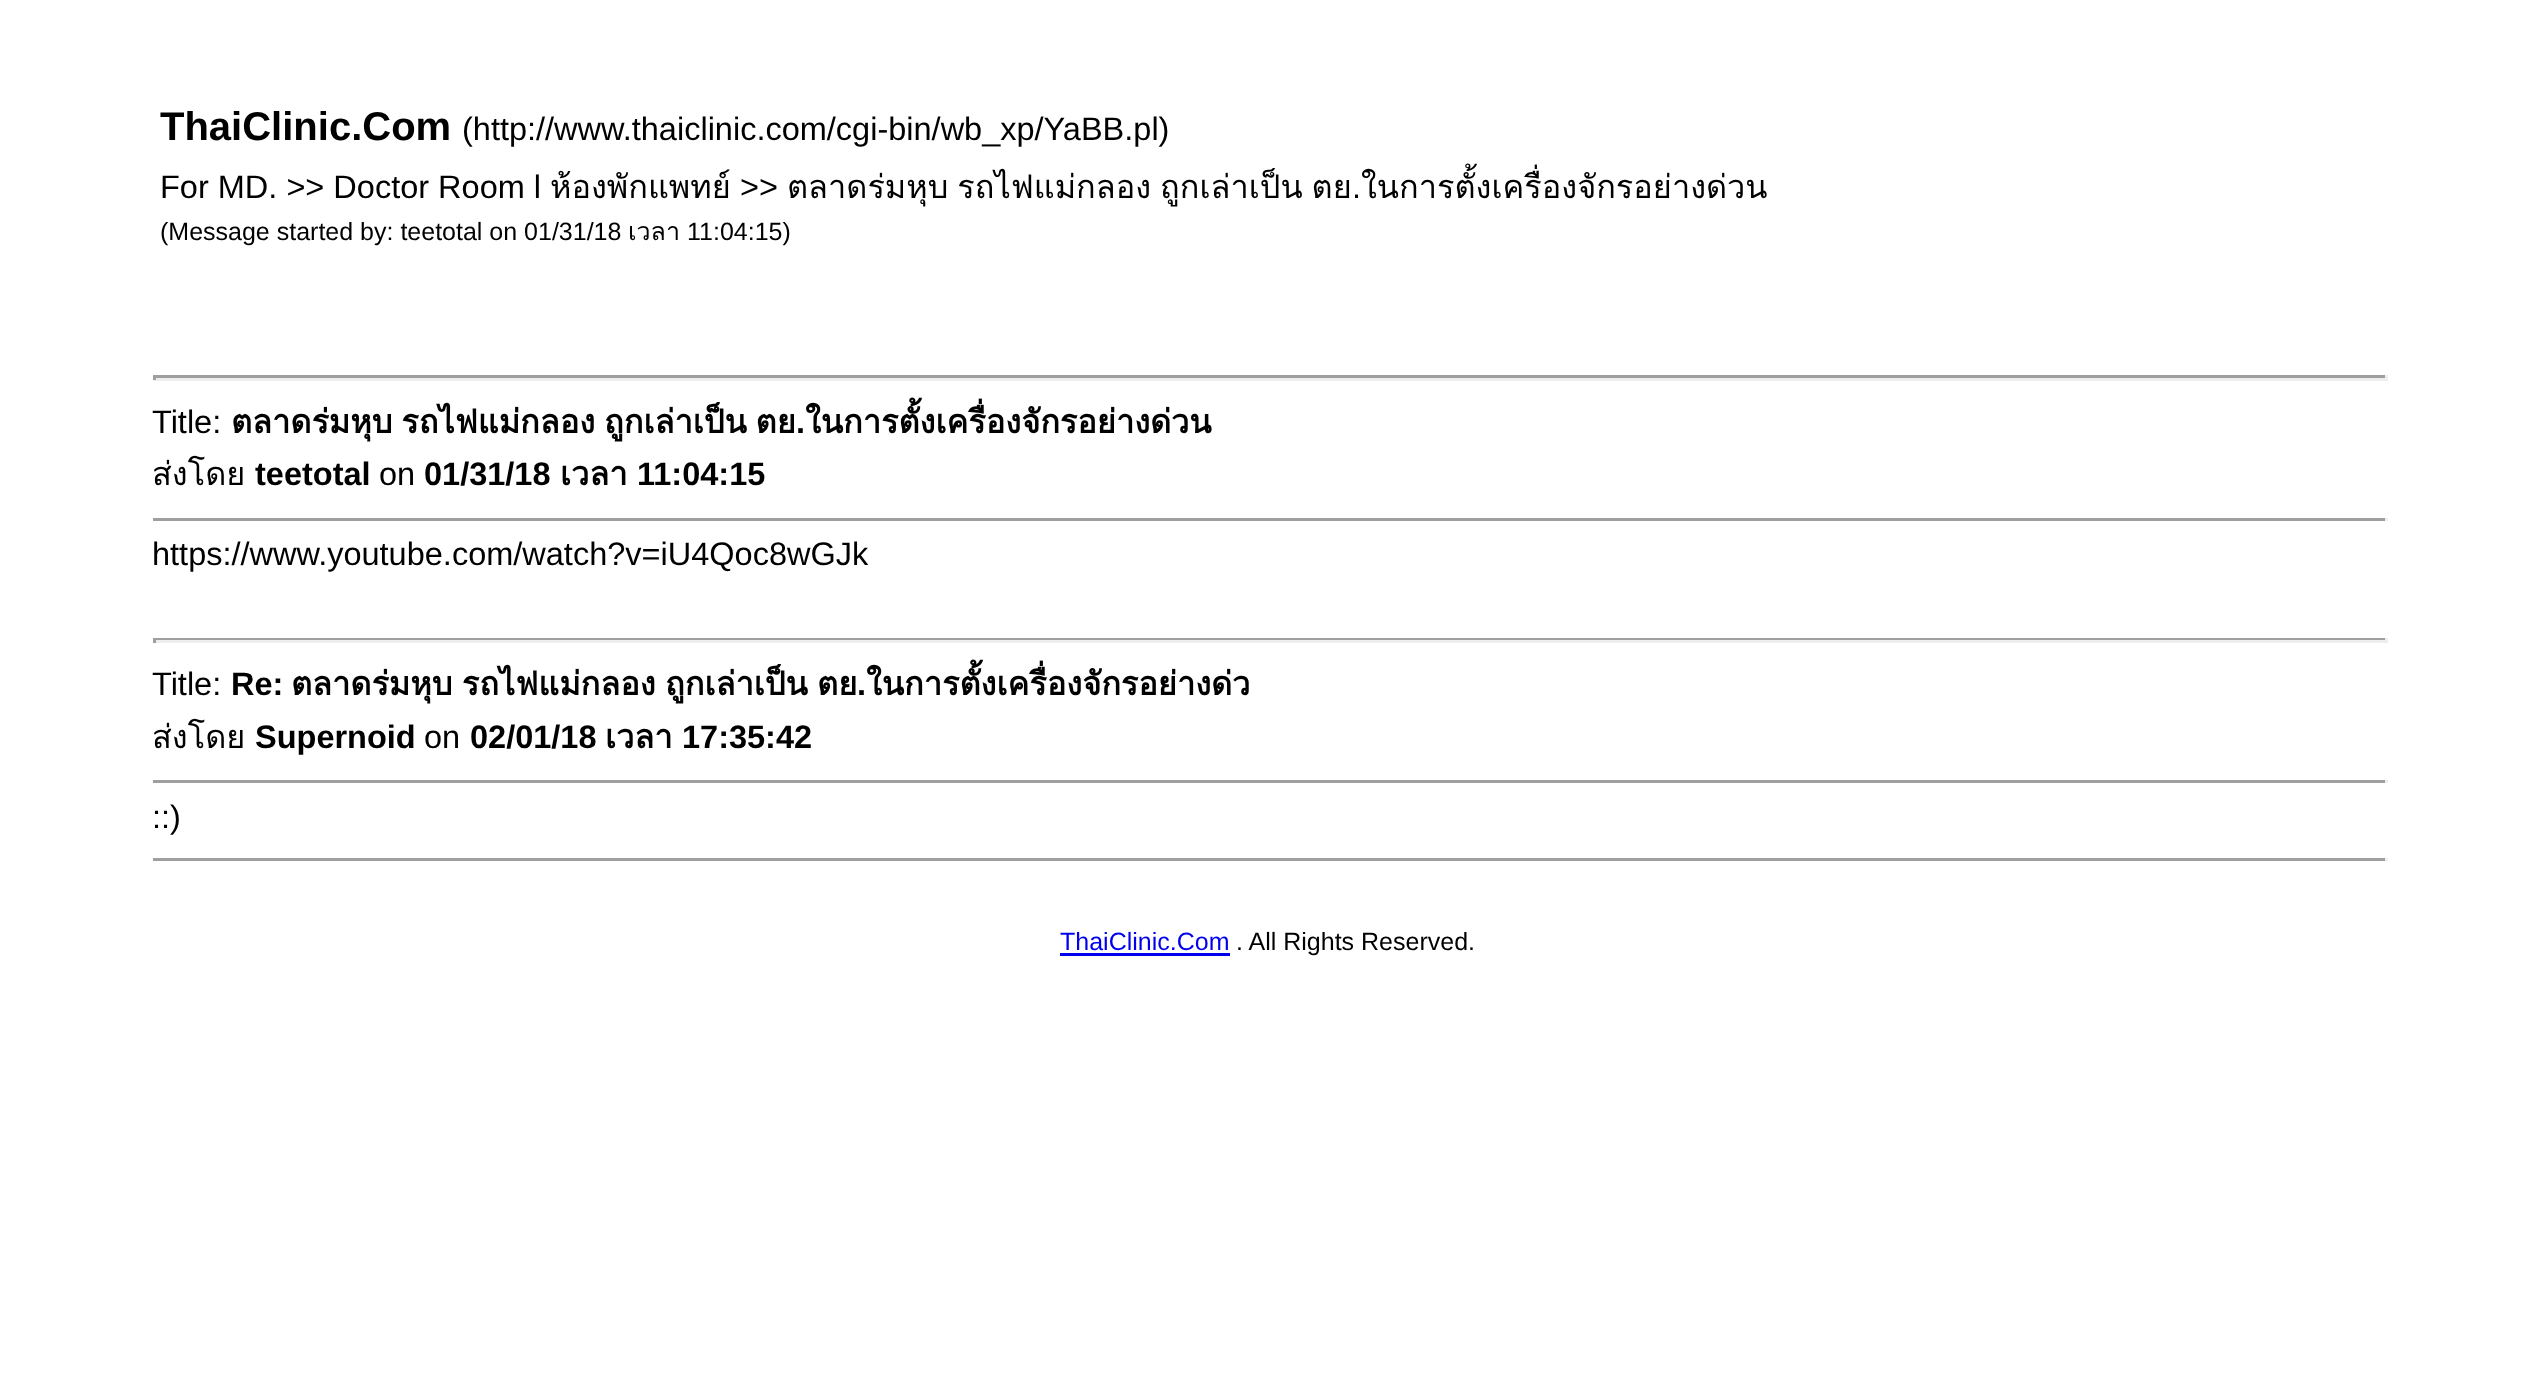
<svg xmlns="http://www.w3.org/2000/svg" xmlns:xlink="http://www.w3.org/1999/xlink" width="2534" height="1375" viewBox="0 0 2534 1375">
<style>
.cls-1{font:bold 40px Liberation Sans;fill:#000000}
.cls-2{font:32.5px Liberation Sans;fill:#000000}
.cls-3{font:32.5px Loma;fill:#000000}
.cls-4{font:25px Liberation Sans;fill:#000000}
.cls-5{font:25px Loma;fill:#000000}
.cls-6{font:bold 32.5px Loma;fill:#000000}
.cls-7{font:bold 32.5px Liberation Sans;fill:#000000}
.cls-8{font:25px Liberation Sans;fill:#0000ee}
</style>
<rect width="100%" height="100%" fill="#ffffff"/>
<rect fill="#9f9f9f" x="153" y="375" width="2235" height="3"/>
<rect fill="#eeeeee" x="2385" y="375" width="3" height="5"/>
<rect fill="#eeeeee" x="153" y="378" width="2235" height="3"/>
<rect fill="#9f9f9f" x="153" y="375" width="3" height="5"/>
<rect fill="#9f9f9f" x="153" y="518" width="2235" height="3"/>
<rect fill="#eeeeee" x="2385" y="518" width="3" height="3"/>
<rect fill="#9f9f9f" x="153" y="638" width="2235" height="2"/>
<rect fill="#eeeeee" x="2385" y="638" width="3" height="5"/>
<rect fill="#eeeeee" x="153" y="640" width="2235" height="3"/>
<rect fill="#9f9f9f" x="153" y="638" width="3" height="5"/>
<rect fill="#9f9f9f" x="153" y="780" width="2235" height="3"/>
<rect fill="#eeeeee" x="2385" y="780" width="3" height="3"/>
<rect fill="#9f9f9f" x="153" y="858" width="2235" height="3"/>
<rect fill="#eeeeee" x="2385" y="858" width="3" height="3"/>
<rect fill="#0000ee" x="1060" y="953" width="170" height="3"/>
<text class="cls-1" x="160" y="140">ThaiClinic.Com</text>
<text class="cls-2" x="462" y="140">(http://www.thaiclinic.com/cgi-bin/wb_xp/YaBB.pl)</text>
<text class="cls-2" x="160" y="198">For MD. &gt;&gt; Doctor Room l</text>
<text class="cls-3" x="550" y="198">ห้องพักแพทย์</text>
<text class="cls-2" x="740" y="198">&gt;&gt;</text>
<text class="cls-3" x="787" y="198" word-spacing="-2">ตลาดร่มหุบ รถไฟแม่กลอง ถูกเล่าเป็น ตย</text>
<text class="cls-2" x="1352" y="198">.</text>
<text class="cls-3" x="1361" y="198">ในการตั้งเครื่องจักรอย่างด่วน</text>
<text class="cls-4" x="160" y="240">(Message started by: teetotal on 01/31/18</text>
<text class="cls-5" x="628" y="240">เวลา</text>
<text class="cls-4" x="687" y="240">11:04:15)</text>
<text class="cls-2" x="152" y="433">Title:</text>
<text class="cls-6" x="231" y="433" word-spacing="-2">ตลาดร่มหุบ รถไฟแม่กลอง ถูกเล่าเป็น ตย</text>
<text class="cls-7" x="796" y="433">.</text>
<text class="cls-6" x="805" y="433">ในการตั้งเครื่องจักรอย่างด่วน</text>
<text class="cls-3" x="152" y="485">ส่งโดย</text>
<text class="cls-7" x="255" y="485">teetotal</text>
<text class="cls-2" x="379" y="485">on</text>
<text class="cls-7" x="424" y="485">01/31/18</text>
<text class="cls-6" x="560" y="485">เวลา</text>
<text class="cls-7" x="637" y="485">11:04:15</text>
<text class="cls-2" x="152" y="565">https://www.youtube.com/watch?v=iU4Qoc8wGJk</text>
<text class="cls-2" x="152" y="695">Title:</text>
<text class="cls-7" x="231" y="695">Re:</text>
<text class="cls-6" x="291" y="695" word-spacing="-1.5">ตลาดร่มหุบ รถไฟแม่กลอง ถูกเล่าเป็น ตย</text>
<text class="cls-7" x="857" y="695">.</text>
<text class="cls-6" x="866" y="695">ในการตั้งเครื่องจักรอย่างด่ว</text>
<text class="cls-3" x="152" y="748">ส่งโดย</text>
<text class="cls-7" x="255" y="748">Supernoid</text>
<text class="cls-2" x="424" y="748">on</text>
<text class="cls-7" x="470" y="748">02/01/18</text>
<text class="cls-6" x="605" y="748">เวลา</text>
<text class="cls-7" x="682" y="748">17:35:42</text>
<text class="cls-2" x="152" y="828">::)</text>
<text class="cls-8" x="1060" y="950">ThaiClinic.Com</text>
<text class="cls-4" x="1236" y="950">. All Rights Reserved.</text>
</svg>
